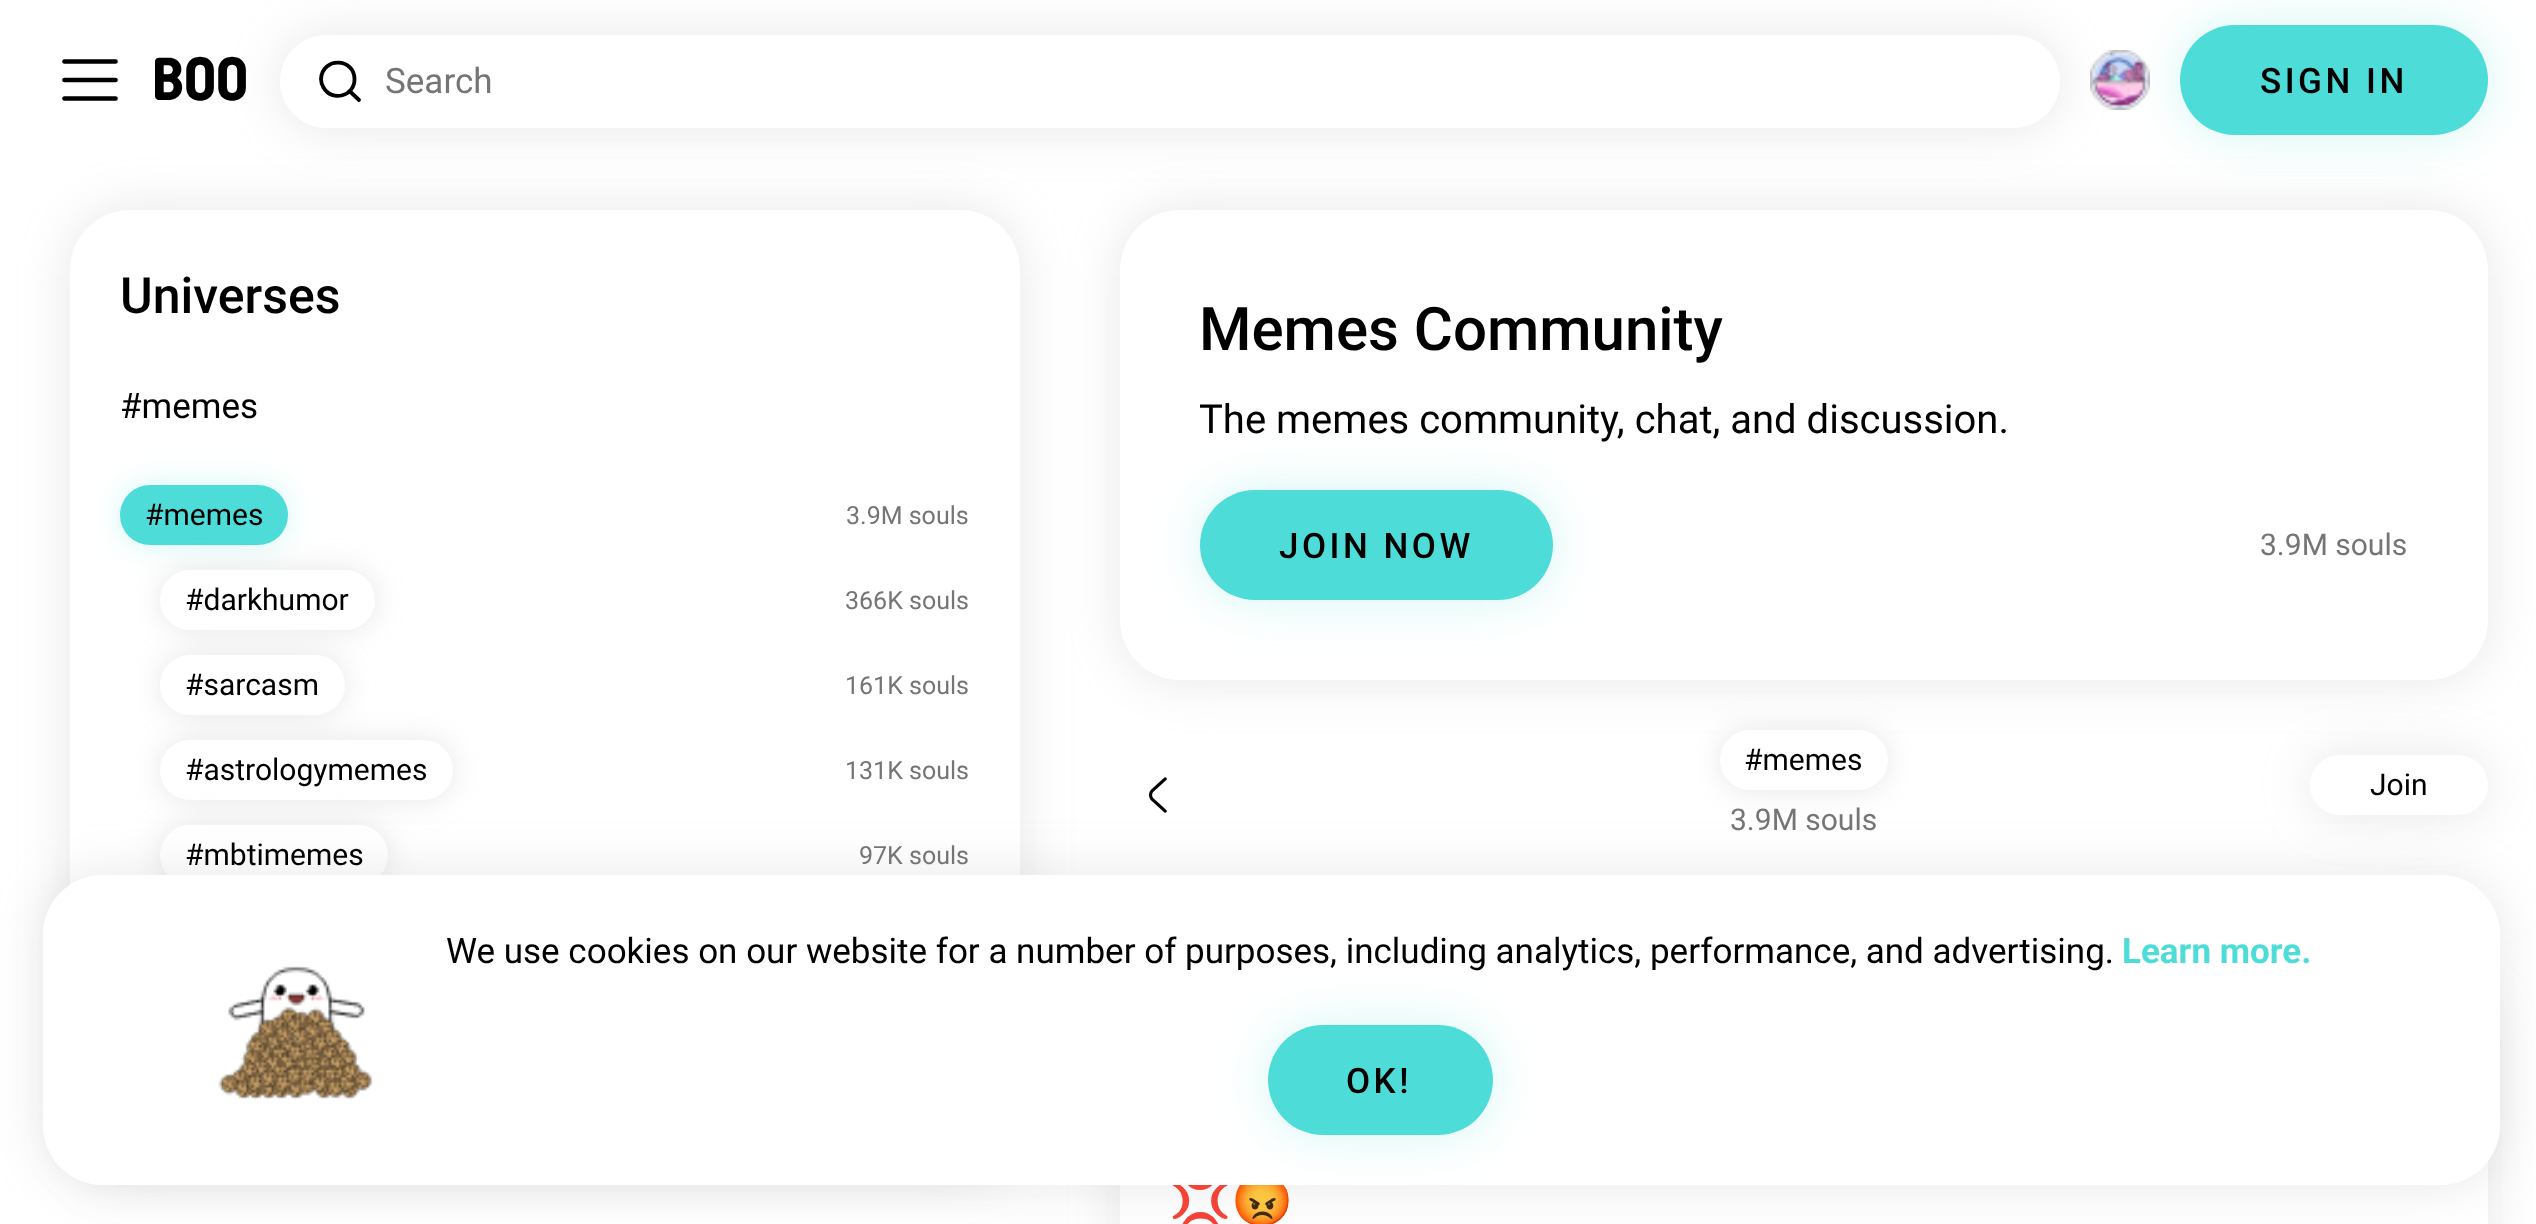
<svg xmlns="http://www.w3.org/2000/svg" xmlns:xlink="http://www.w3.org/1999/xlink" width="2536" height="1224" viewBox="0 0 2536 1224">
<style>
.cls-1{font:bold 60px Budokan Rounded;fill:#000000}
.cls-2{font:35px Roboto;fill:#757575}
.cls-3{font:500 35px Roboto;letter-spacing:3.5px;fill:#000000}
.cls-4{font:500 50px Roboto;fill:#000000}
.cls-5{font:35px Roboto;fill:#000000}
.cls-6{font:30px Roboto;fill:#000000}
.cls-7{font:25px Roboto;fill:#757575}
.cls-8{font:500 60px Roboto;fill:#000000}
.cls-9{font:40px Roboto;fill:#000000}
.cls-10{font:30px Roboto;fill:#757575}
.cls-11{font:50px Noto Color Emoji;fill:#000000}
.cls-12{font:bold 35px Roboto;fill:#4edcd8}
</style>
<defs>
<clipPath id="clip1"><path d="M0 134H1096V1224H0ZM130 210H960C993 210 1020 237 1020 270V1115C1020 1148 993 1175 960 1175H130C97 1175 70 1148 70 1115V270C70 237 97 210 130 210Z" clip-rule="evenodd"/></clipPath>
<clipPath id="clip2"><path d="M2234 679H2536V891H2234ZM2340 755H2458C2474.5 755 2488 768.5 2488 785C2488 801.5 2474.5 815 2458 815H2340C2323.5 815 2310 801.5 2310 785C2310 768.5 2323.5 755 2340 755Z" clip-rule="evenodd"/></clipPath>
<clipPath id="clip3"><path d="M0 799H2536V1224H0ZM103 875H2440C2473 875 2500 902 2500 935V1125C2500 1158 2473 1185 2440 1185H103C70 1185 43 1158 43 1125V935C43 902 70 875 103 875Z" clip-rule="evenodd"/></clipPath>
<clipPath id="clip4"><path d="M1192 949H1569V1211H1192ZM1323 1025H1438C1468.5 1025 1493 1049.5 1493 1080C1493 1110.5 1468.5 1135 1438 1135H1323C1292.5 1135 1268 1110.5 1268 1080C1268 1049.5 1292.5 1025 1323 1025Z" clip-rule="evenodd"/></clipPath>
</defs>
<rect width="100%" height="100%" fill="#ffffff"/>
<path fill="none" stroke="#000000" stroke-width="4.7" stroke-linecap="round" d="M64.5 61.5H115.5M64.5 80H115.5M64.5 98.5H115.5"/>
<rect fill="#9e9e9e" fill-opacity="0.25" filter="blur(25px)" x="280" y="35" width="1780" height="93" rx="46.5"/>
<rect fill="#ffffff" x="280" y="35" width="1780" height="93" rx="46.5"/>
<path fill="none" stroke="#000000" stroke-width="3.8" stroke-linecap="round" stroke-linejoin="round" d="M359 100L349.5 91M354.5 79C355 96 332 102.5 323.5 87.5C322 85 321 82 321 79C322.5 56.5 354.5 58 354.5 79Z"/>
<rect fill="#9e9e9e" fill-opacity="0.25" filter="blur(25px)" x="1120" y="210" width="1368" height="470" rx="60"/>
<rect fill="#ffffff" x="1120" y="210" width="1368" height="470" rx="60"/>
<rect fill="#4edcd8" fill-opacity="0.25" filter="blur(25px)" x="2180" y="25" width="308" height="110" rx="55"/>
<image xlink:href="image0.png" x="2090" y="50" width="60" height="60"/>
<rect fill="#4edcd8" x="2180" y="25" width="308" height="110" rx="55"/>
<g clip-path="url(#clip1)">
<rect fill="#9e9e9e" fill-opacity="0.25" filter="blur(25px)" x="70" y="210" width="950" height="965" rx="60"/>
</g>
<rect fill="#4edcd8" fill-opacity="0.25" filter="blur(15px)" x="120" y="485" width="168" height="60" rx="30"/>
<rect fill="#4edcd8" x="120" y="485" width="168" height="60" rx="30"/>
<rect fill="#9e9e9e" fill-opacity="0.25" filter="blur(15px)" x="160" y="570" width="215" height="60" rx="30"/>
<rect fill="#ffffff" x="160" y="570" width="215" height="60" rx="30"/>
<rect fill="#9e9e9e" fill-opacity="0.25" filter="blur(15px)" x="160" y="655" width="185" height="60" rx="30"/>
<rect fill="#ffffff" x="160" y="655" width="185" height="60" rx="30"/>
<rect fill="#9e9e9e" fill-opacity="0.25" filter="blur(15px)" x="160" y="740" width="293" height="60" rx="30"/>
<rect fill="#ffffff" x="160" y="740" width="293" height="60" rx="30"/>
<rect fill="#9e9e9e" fill-opacity="0.25" filter="blur(15px)" x="160" y="825" width="228" height="60" rx="30"/>
<rect fill="#ffffff" x="160" y="825" width="228" height="60" rx="30"/>
<rect fill="#4edcd8" fill-opacity="0.25" filter="blur(25px)" x="1200" y="490" width="353" height="110" rx="55"/>
<rect fill="#4edcd8" x="1200" y="490" width="353" height="110" rx="55"/>
<image xlink:href="image1.png" x="1149" y="777" width="18" height="36"/>
<rect fill="#9e9e9e" fill-opacity="0.25" filter="blur(15px)" x="1720" y="730" width="168" height="60" rx="30"/>
<rect fill="#ffffff" x="1720" y="730" width="168" height="60" rx="30"/>
<g clip-path="url(#clip2)">
<rect fill="#9e9e9e" fill-opacity="0.25" filter="blur(25px)" x="2310" y="755" width="178" height="60" rx="30"/>
</g>
<rect fill="#9e9e9e" fill-opacity="0.25" filter="blur(25px)" x="1120" y="980" width="1368" height="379" rx="60"/>
<rect fill="#ffffff" x="1120" y="1161" width="1368" height="63"/>
<g clip-path="url(#clip3)">
<rect fill="#9e9e9e" fill-opacity="0.25" filter="blur(25px)" x="43" y="875" width="2457" height="310" rx="60"/>
</g>
<text class="cls-1" x="155" y="100">Boo</text>
<text class="cls-2" x="385" y="93">Search</text>
<text class="cls-3" x="2260" y="93">SIGN IN</text>
<text class="cls-4" x="120" y="313">Universes</text>
<text class="cls-5" x="120" y="418">#memes</text>
<text class="cls-6" x="145" y="525">#memes</text>
<text class="cls-7" x="846" y="524">3.9M souls</text>
<text class="cls-6" x="185" y="610">#darkhumor</text>
<text class="cls-7" x="845" y="609">366K souls</text>
<text class="cls-6" x="185" y="695">#sarcasm</text>
<text class="cls-7" x="845" y="694">161K souls</text>
<text class="cls-6" x="185" y="780">#astrologymemes</text>
<text class="cls-7" x="845" y="779">131K souls</text>
<text class="cls-6" x="185" y="865">#mbtimemes</text>
<text class="cls-7" x="859" y="864">97K souls</text>
<text class="cls-8" x="1199" y="350">Memes Community</text>
<text class="cls-9" x="1199" y="433">The memes community, chat, and discussion.</text>
<text class="cls-3" x="1279" y="558">JOIN NOW</text>
<text class="cls-10" x="2260" y="555">3.9M souls</text>
<text class="cls-6" x="1744" y="770">#memes</text>
<text class="cls-10" x="1730" y="830">3.9M souls</text>
<text class="cls-6" x="2370" y="795">Join</text>
<text class="cls-11" x="1169" y="1218">💢😡</text>
<rect fill="#ffffff" x="43" y="875" width="2457" height="310" rx="60"/>
<image xlink:href="image2.png" x="218" y="966" width="155" height="134"/>
<text class="cls-5" x="446" y="963">We use cookies on our website for a number of purposes, including analytics, performance, and advertising.</text>
<text class="cls-12" x="2122" y="963">Learn more.</text>
<g clip-path="url(#clip4)">
<rect fill="#4edcd8" fill-opacity="0.25" filter="blur(25px)" x="1268" y="1025" width="225" height="110" rx="55"/>
</g>
<rect fill="#4edcd8" x="1268" y="1025" width="225" height="110" rx="55"/>
<text class="cls-3" x="1346" y="1093">OK!</text>
</svg>
